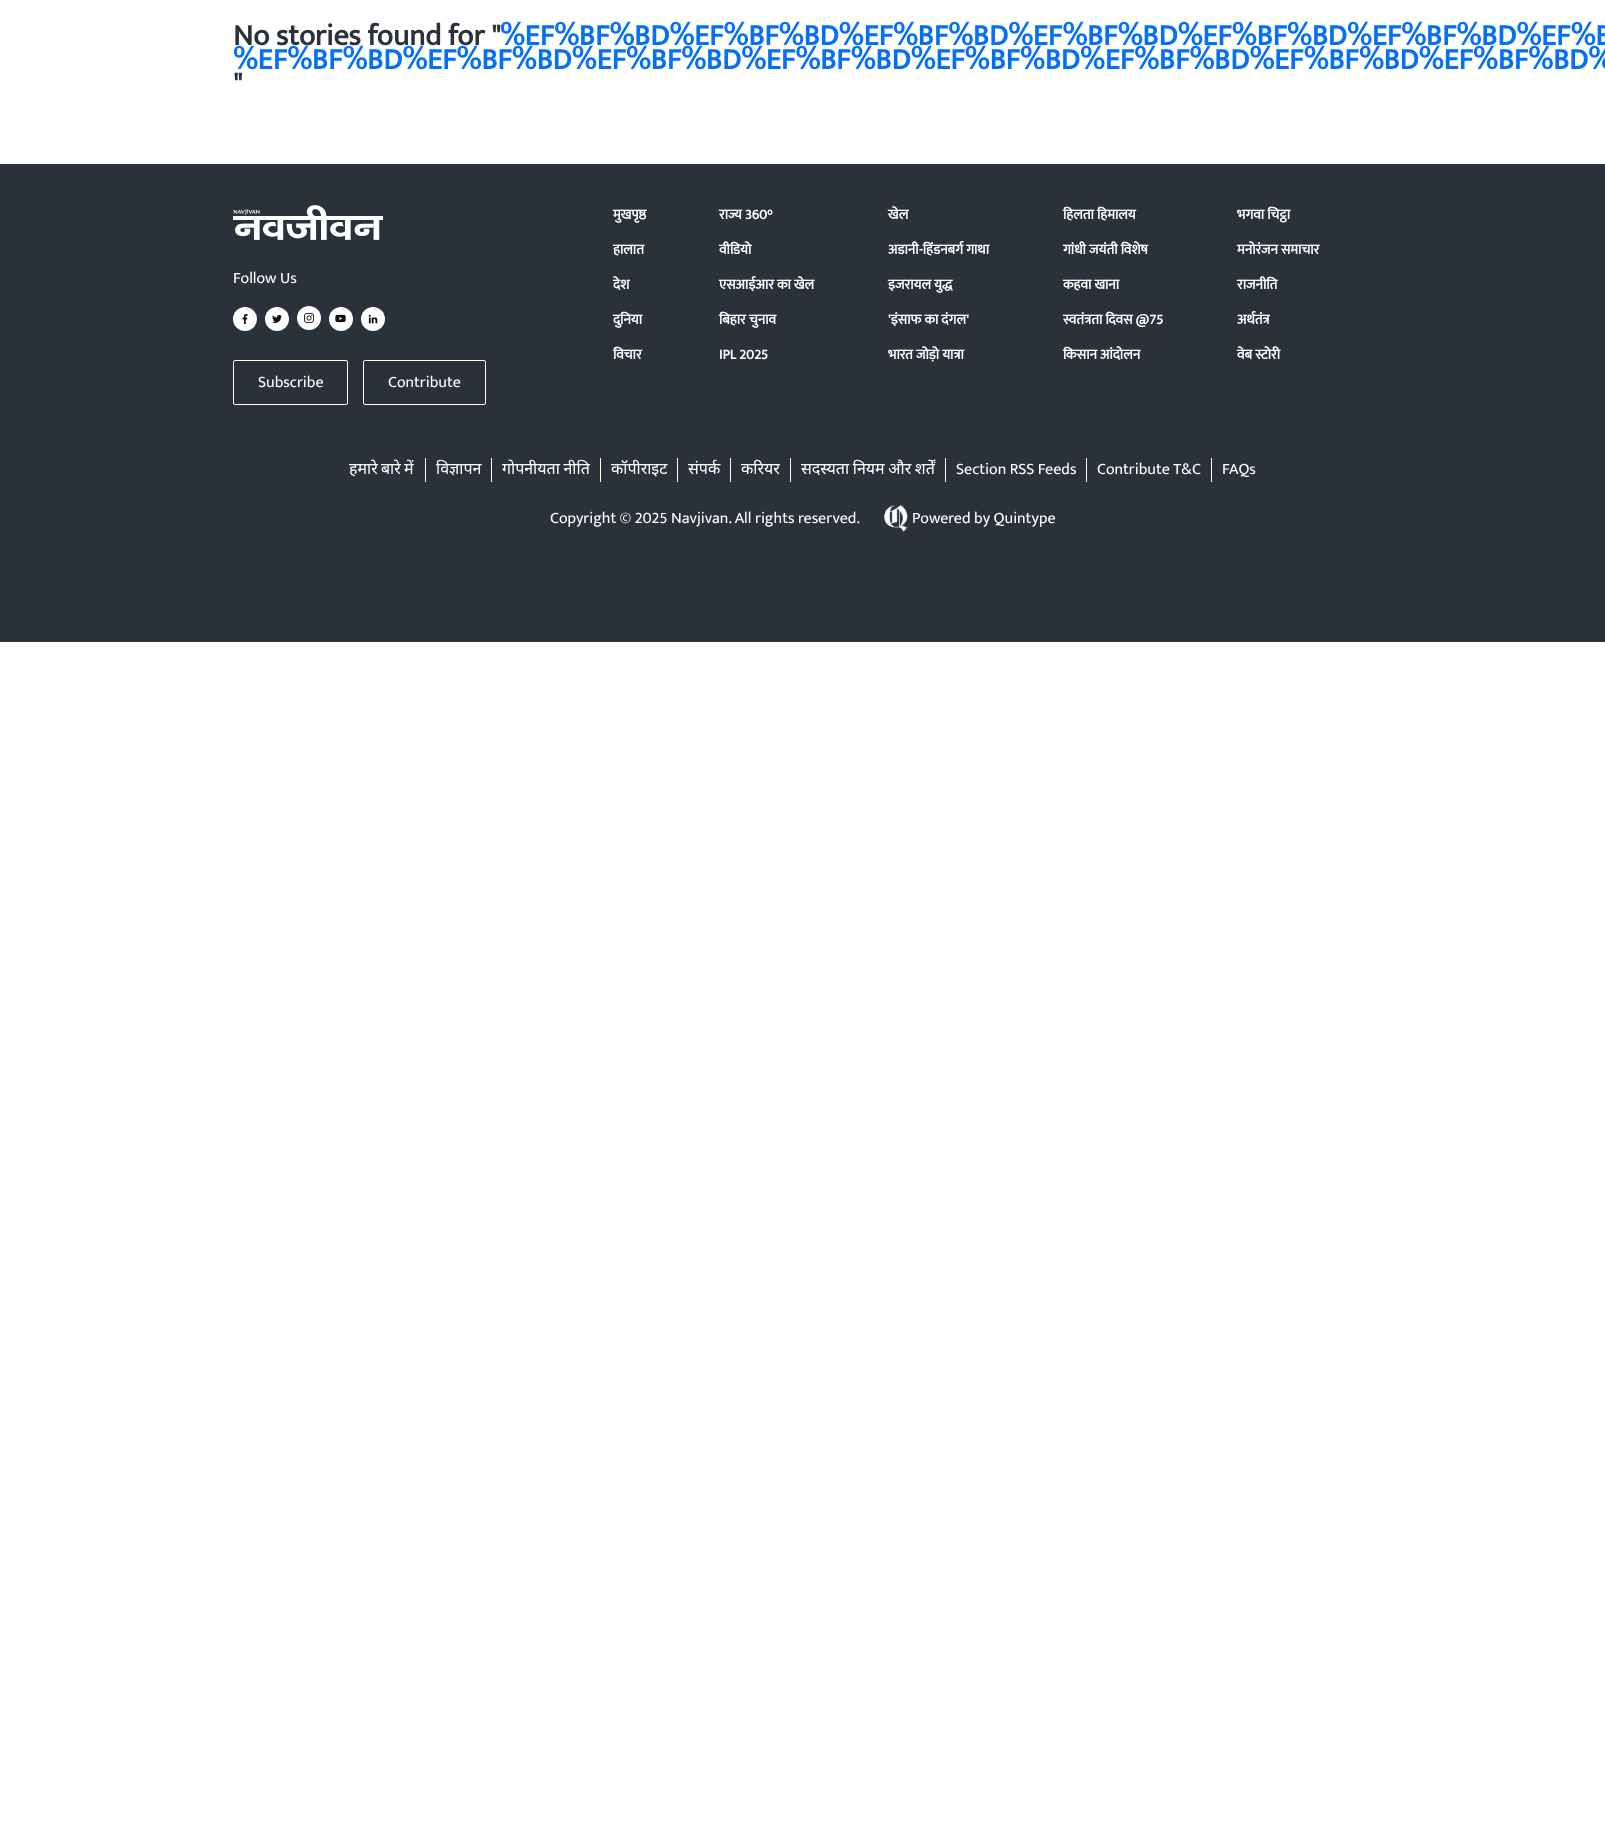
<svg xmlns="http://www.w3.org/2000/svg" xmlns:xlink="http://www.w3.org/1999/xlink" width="1605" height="1843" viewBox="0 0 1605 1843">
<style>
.cls-1{font:bold 30px Ek Mukta;fill:#2a313b}
.cls-2{font:bold 30px Ek Mukta;fill:#056ff7}
.cls-3{font:16px Ek Mukta;fill:#ffffff}
.cls-4{font:bold 14px Ek Mukta;fill:#ffffff}
.cls-5{font:16px Noto Sans;fill:#ffffff}
</style>
<rect width="100%" height="100%" fill="#ffffff"/>
<rect fill="#2a313b" x="0" y="164" width="1605" height="478"/>
<image xlink:href="image0.png" x="233" y="205" width="150" height="35"/>
<circle fill="#ffffff" cx="245" cy="319" r="12"/>
<image xlink:href="image1.png" x="242" y="314" width="6" height="10"/>
<circle fill="#ffffff" cx="277" cy="319" r="12"/>
<image xlink:href="image2.png" x="272" y="315" width="10" height="8"/>
<circle fill="#ffffff" cx="309" cy="318" r="12"/>
<image xlink:href="image3.png" x="304" y="313" width="10" height="10"/>
<circle fill="#ffffff" cx="341" cy="319" r="12"/>
<image xlink:href="image4.png" x="335" y="314" width="11" height="9"/>
<circle fill="#ffffff" cx="373" cy="319" r="12"/>
<image xlink:href="image5.png" x="368" y="314" width="10" height="10"/>
<rect fill="none" stroke="#ffffff" x="233.5" y="360.5" width="114" height="44" rx="1.5"/>
<rect fill="none" stroke="#ffffff" x="363.5" y="360.5" width="122" height="44" rx="1.5"/>
<rect fill="#ffffff" x="425" y="458" width="1" height="24"/>
<rect fill="#ffffff" x="491" y="458" width="1" height="24"/>
<rect fill="#ffffff" x="600" y="458" width="1" height="24"/>
<rect fill="#ffffff" x="677" y="458" width="1" height="24"/>
<rect fill="#ffffff" x="730" y="458" width="1" height="24"/>
<rect fill="#ffffff" x="790" y="458" width="1" height="24"/>
<rect fill="#ffffff" x="945" y="458" width="1" height="24"/>
<rect fill="#ffffff" x="1086" y="458" width="1" height="24"/>
<rect fill="#ffffff" x="1211" y="458" width="1" height="24"/>
<image xlink:href="image6.png" x="884" y="505" width="24" height="27"/>
<text class="cls-1" x="233" y="45">No stories found for "</text>
<text class="cls-2" x="500" y="45">%EF%BF%BD%EF%BF%BD%EF%BF%BD%EF%BF%BD%EF%BF%BD%EF%BF%BD%EF%B</text>
<text class="cls-2" x="233" y="69">%EF%BF%BD%EF%BF%BD%EF%BF%BD%EF%BF%BD%EF%BF%BD%EF%BF%BD%EF%BF%BD%EF%BF%BD%</text>
<text class="cls-1" x="233" y="93">"</text>
<text class="cls-3" x="233" y="283">Follow Us</text>
<text class="cls-3" x="258" y="387">Subscribe</text>
<text class="cls-3" x="388" y="387">Contribute</text>
<text class="cls-4" x="613" y="219">मुखपृष्ठ</text>
<text class="cls-4" x="719" y="219">राज्य 360°</text>
<text class="cls-4" x="888" y="219">खेल</text>
<text class="cls-4" x="1063" y="219">हिलता हिमालय</text>
<text class="cls-4" x="1237" y="219">भगवा चिट्ठा</text>
<text class="cls-4" x="613" y="254">हालात</text>
<text class="cls-4" x="719" y="254">वीडियो</text>
<text class="cls-4" x="888" y="254">अडानी-हिंडनबर्ग गाथा</text>
<text class="cls-4" x="1063" y="254">गांधी जयंती विशेष</text>
<text class="cls-4" x="1237" y="254">मनोरंजन समाचार</text>
<text class="cls-4" x="613" y="289">देश</text>
<text class="cls-4" x="719" y="289">एसआईआर का खेल</text>
<text class="cls-4" x="888" y="289">इजरायल युद्ध</text>
<text class="cls-4" x="1063" y="289">कहवा खाना</text>
<text class="cls-4" x="1237" y="289">राजनीति</text>
<text class="cls-4" x="613" y="324">दुनिया</text>
<text class="cls-4" x="719" y="324">बिहार चुनाव</text>
<text class="cls-4" x="888" y="324">'इंसाफ का दंगल'</text>
<text class="cls-4" x="1063" y="324">स्वतंत्रता दिवस @75</text>
<text class="cls-4" x="1237" y="324">अर्थतंत्र</text>
<text class="cls-4" x="613" y="359">विचार</text>
<text class="cls-4" x="719" y="359">IPL 2025</text>
<text class="cls-4" x="888" y="359">भारत जोड़ो यात्रा</text>
<text class="cls-4" x="1063" y="359">किसान आंदोलन</text>
<text class="cls-4" x="1237" y="359">वेब स्टोरी</text>
<text class="cls-5" x="349" y="474" word-spacing="-1">हमारे बारे में</text>
<text class="cls-5" x="436" y="474">विज्ञापन</text>
<text class="cls-5" x="502" y="474" word-spacing="-0.5">गोपनीयता नीति</text>
<text class="cls-5" x="611" y="474">कॉपीराइट</text>
<text class="cls-5" x="688" y="474">संपर्क</text>
<text class="cls-5" x="741" y="474">करियर</text>
<text class="cls-5" x="801" y="474" word-spacing="-0.5">सदस्यता नियम और शर्तें</text>
<text class="cls-3" x="956" y="474">Section RSS Feeds</text>
<text class="cls-3" x="1097" y="474">Contribute T&amp;C</text>
<text class="cls-3" x="1222" y="474">FAQs</text>
<text class="cls-3" x="550" y="523">Copyright © 2025 Navjivan. All rights reserved.</text>
<text class="cls-3" x="912" y="523">Powered by Quintype</text>
</svg>
